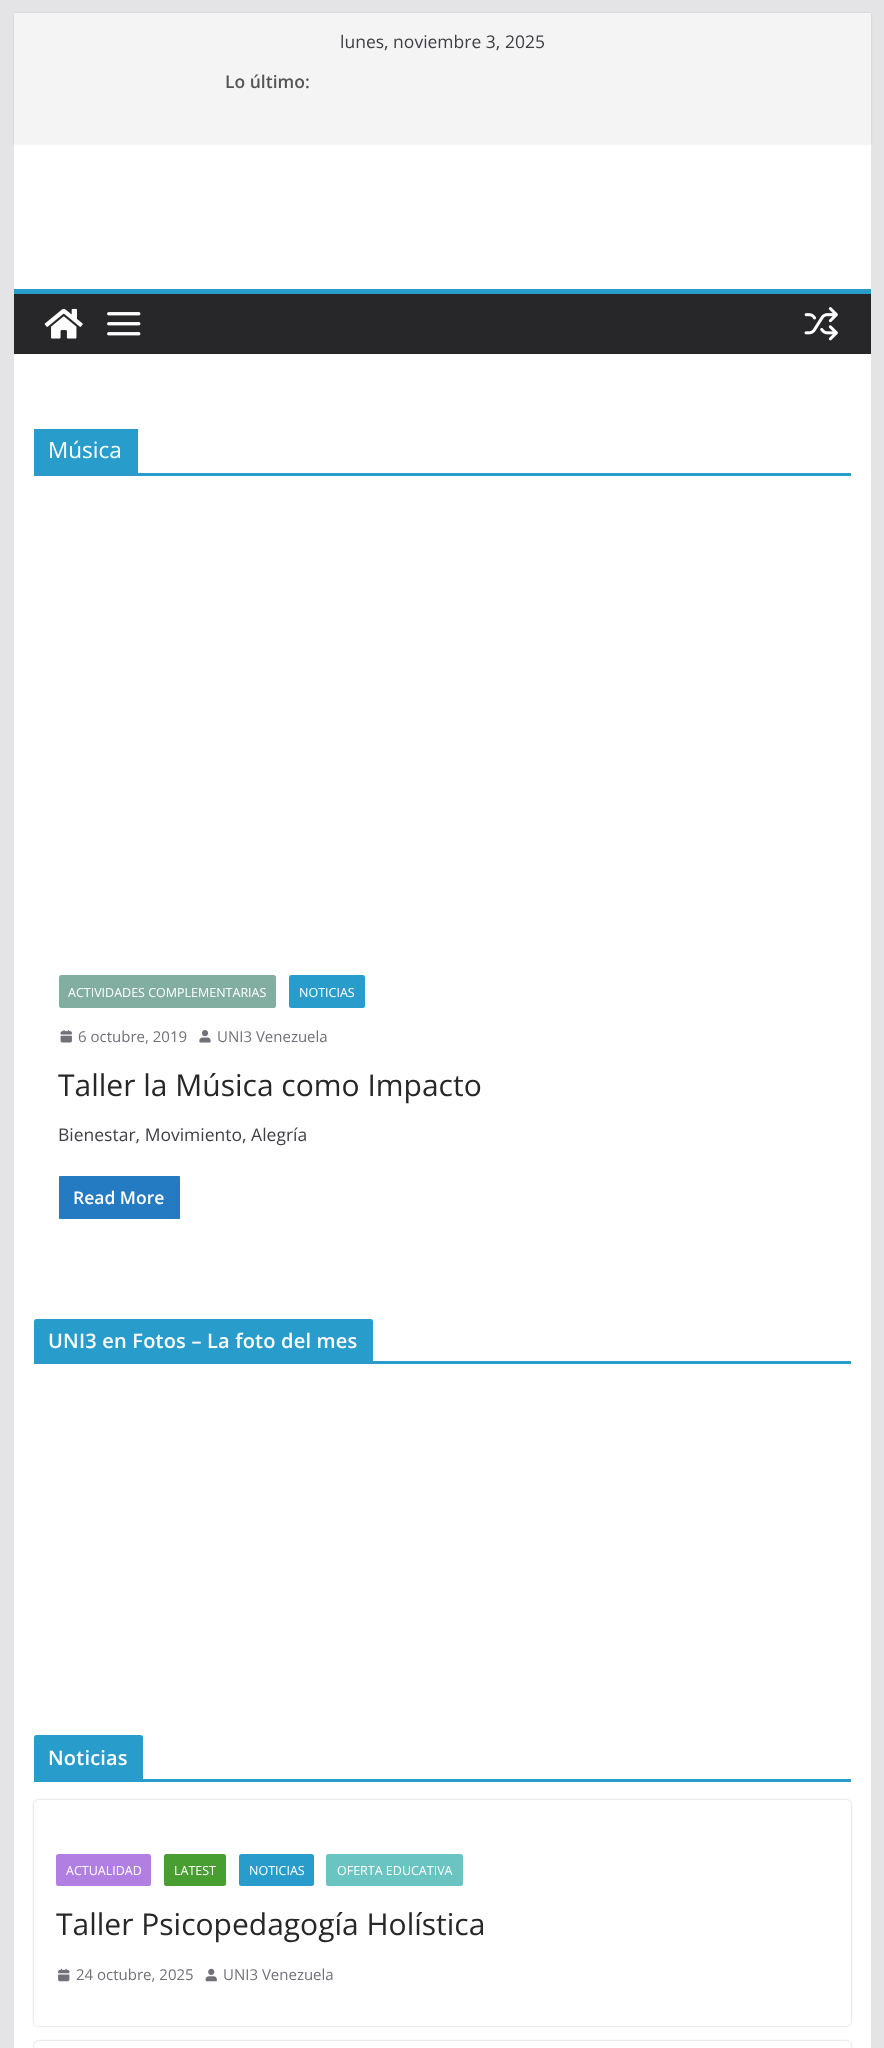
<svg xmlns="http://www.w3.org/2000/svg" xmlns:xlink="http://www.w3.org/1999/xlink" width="884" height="2048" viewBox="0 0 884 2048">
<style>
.cls-1{font:17.5px Open Sans;fill:#3f3f46}
.cls-2{font:600 17.5px Open Sans;fill:#555555}
.cls-3{font:22.5px Open Sans;fill:#ffffff}
.cls-4{font:12.5px Open Sans;fill:#ffffff}
.cls-5{font:15px Open Sans;fill:#71717a}
.cls-6{font:30px Open Sans;fill:#27272a}
.cls-7{font:600 17.5px Open Sans;fill:#ffffff}
.cls-8{font:600 20px Open Sans;letter-spacing:0.2px;fill:#ffffff}
</style>
<defs>
<clipPath id="clip1"><path d="M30 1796H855V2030H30ZM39 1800H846C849 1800 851 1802 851 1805V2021C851 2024 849 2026 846 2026H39C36 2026 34 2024 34 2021V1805C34 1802 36 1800 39 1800Z" clip-rule="evenodd"/></clipPath>
<clipPath id="clip2"><path d="M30 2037H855V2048H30ZM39 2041H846C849 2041 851 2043 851 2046V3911C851 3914 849 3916 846 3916H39C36 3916 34 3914 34 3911V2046C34 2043 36 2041 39 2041Z" clip-rule="evenodd"/></clipPath>
</defs>
<rect width="100%" height="100%" fill="#e4e4e7"/>
<rect fill="#ffffff" x="14" y="144" width="857" height="145"/>
<rect fill="#000000" fill-opacity="0.1" filter="blur(1px)" x="14" y="13" width="857" height="131"/>
<rect fill="#f4f4f5" x="14" y="13" width="857" height="131"/>
<rect fill="#27272a" x="14" y="294" width="857" height="60"/>
<rect fill="#289dcc" x="14" y="289" width="857" height="5"/>
<image xlink:href="image0.png" x="44" y="308" width="39" height="31"/>
<image xlink:href="image1.png" x="107" y="312" width="34" height="24"/>
<image xlink:href="image2.png" x="804" y="307" width="34" height="34"/>
<rect fill="#ffffff" x="14" y="354" width="857" height="1694"/>
<rect fill="#289dcc" x="34" y="473" width="817" height="3"/>
<rect fill="#289dcc" x="34" y="429" width="104" height="44"/>
<rect fill="#82ada1" x="59" y="975" width="217" height="33" rx="2.5"/>
<rect fill="#289dcc" x="289" y="975" width="76" height="33" rx="2.5"/>
<image xlink:href="image3.png" x="60" y="1030" width="12" height="13"/>
<image xlink:href="image4.png" x="199" y="1030" width="12" height="13"/>
<rect fill="#289dcc" x="59" y="1176" width="121" height="43"/>
<rect fill="#257bc1" x="59" y="1176" width="121" height="43" rx="2.5"/>
<rect fill="#289dcc" x="34" y="1361" width="817" height="3"/>
<path fill="#289dcc" d="M36.5 1319H370.5C372 1319 373 1320 373 1321.5V1361H34V1321.5C34 1320 35 1319 36.5 1319Z"/>
<rect fill="#289dcc" x="34" y="1779" width="817" height="3"/>
<path fill="#289dcc" d="M36.5 1735H140.5C142 1735 143 1736 143 1737.5V1779H34V1737.5C34 1736 35 1735 36.5 1735Z"/>
<g clip-path="url(#clip1)">
<rect fill="#000000" fill-opacity="0.24" filter="blur(1px)" x="34" y="1800" width="817" height="226" rx="5"/>
</g>
<rect fill="#b17fe2" x="56" y="1854" width="95" height="32" rx="2.5"/>
<rect fill="#489e31" x="164" y="1854" width="62" height="32" rx="2.5"/>
<rect fill="#289dcc" x="239" y="1854" width="75" height="32" rx="2.5"/>
<rect fill="#6ac4c2" x="326" y="1854" width="137" height="32" rx="2.5"/>
<image xlink:href="image5.png" x="58" y="1968" width="12" height="14"/>
<image xlink:href="image6.png" x="205" y="1968" width="12" height="14"/>
<g clip-path="url(#clip2)">
<rect fill="#000000" fill-opacity="0.24" filter="blur(1px)" x="34" y="2041" width="817" height="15" rx="5"/>
</g>
<text class="cls-1" x="340" y="48">lunes, noviembre 3, 2025</text>
<text class="cls-2" x="225" y="88">Lo último:</text>
<text class="cls-3" x="48" y="458">Música</text>
<text class="cls-4" x="68" y="997">ACTIVIDADES COMPLEMENTARIAS</text>
<text class="cls-4" x="299" y="997">NOTICIAS</text>
<text class="cls-5" x="78" y="1042">6 octubre, 2019</text>
<text class="cls-5" x="217" y="1042">UNI3 Venezuela</text>
<text class="cls-6" x="58" y="1096">Taller la Música como Impacto</text>
<text class="cls-1" x="58" y="1141">Bienestar, Movimiento, Alegría</text>
<text class="cls-7" x="73" y="1204">Read More</text>
<text class="cls-8" x="48" y="1348">UNI3 en Fotos – La foto del mes</text>
<text class="cls-8" x="48" y="1765">Noticias</text>
<text class="cls-4" x="66" y="1875">ACTUALIDAD</text>
<text class="cls-4" x="174" y="1875">LATEST</text>
<text class="cls-4" x="249" y="1875">NOTICIAS</text>
<text class="cls-4" x="337" y="1875">OFERTA EDUCATIVA</text>
<text class="cls-6" x="56" y="1935">Taller Psicopedagogía Holística</text>
<text class="cls-5" x="76" y="1980">24 octubre, 2025</text>
<text class="cls-5" x="223" y="1980">UNI3 Venezuela</text>
</svg>
